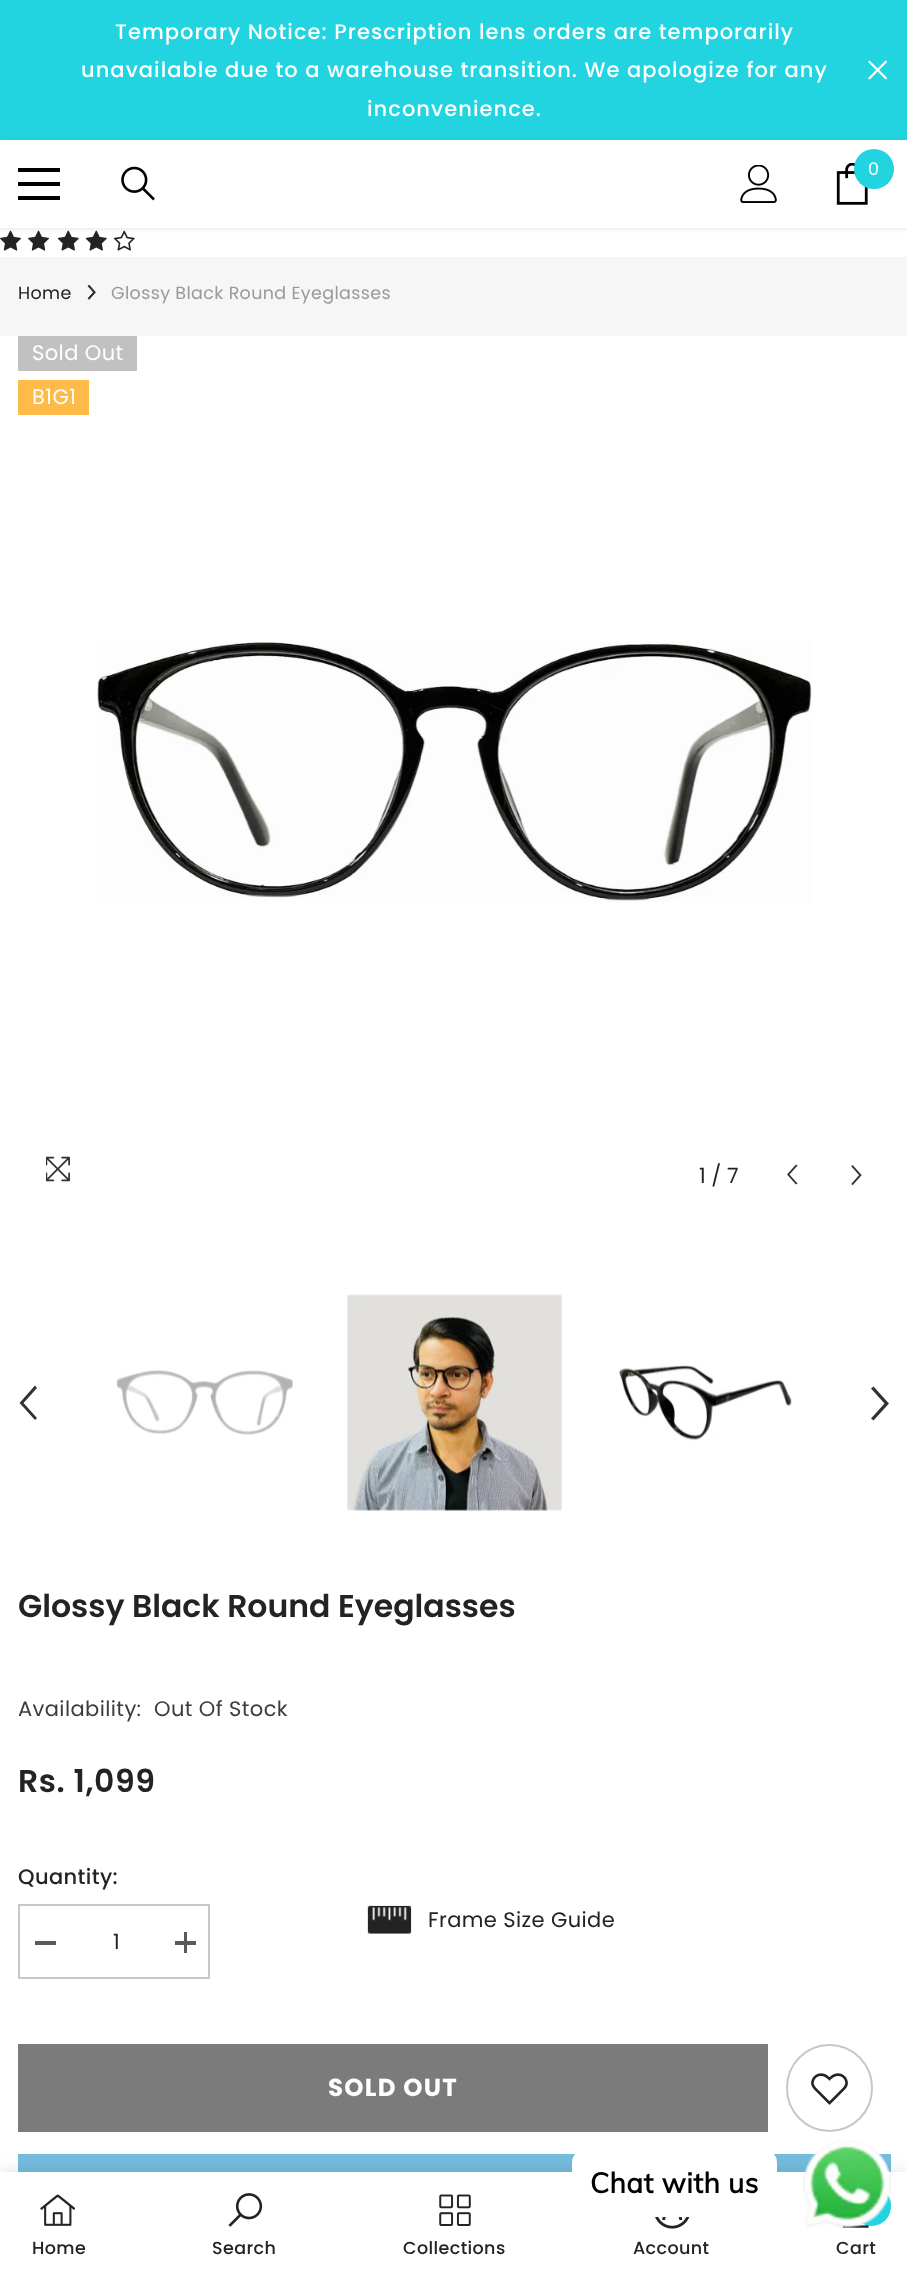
<svg xmlns="http://www.w3.org/2000/svg" xmlns:xlink="http://www.w3.org/1999/xlink" width="907" height="2280" viewBox="0 0 907 2280">
<style>
.cls-1{font:500 21px Poppins;letter-spacing:1.05px;fill:#ffffff}
.cls-2{font:17.5px Poppins;letter-spacing:0.35px;fill:#ffffff}
.cls-3{font:17.5px Poppins;letter-spacing:0.35px;fill:#232323}
.cls-4{font:17.5px Poppins;letter-spacing:0.35px;fill:#999999}
.cls-5{font:21px Poppins;letter-spacing:0.4px;fill:#ffffff}
.cls-6{font:21px Poppins;fill:#232323}
.cls-7{font:600 31.5px Poppins;fill:#232323}
.cls-8{font:21px Poppins;letter-spacing:0.4px;fill:#3c3c3c}
.cls-9{font:600 31.5px Poppins;letter-spacing:0.6px;fill:#232323}
.cls-10{font:500 21px Poppins;letter-spacing:0.4px;fill:#232323}
.cls-11{font:21px Poppins;letter-spacing:0.4px;fill:#232323}
.cls-12{font:bold 24.5px Poppins;letter-spacing:1.25px;fill:#ffffff}
.cls-13{font:500 17.5px Poppins;letter-spacing:0.4px;fill:#232323}
.cls-14{font:bold 28px Muli;letter-spacing:0.4px;fill:#000000}
</style>
<rect width="100%" height="100%" fill="#ffffff"/>
<rect fill="#22d4df" x="0" y="0" width="907" height="140"/>
<image xlink:href="image0.png" x="868" y="60" width="19" height="20"/>
<image xlink:href="image4.png" x="0" y="230" width="21" height="21"/>
<image xlink:href="image4.png" x="28" y="230" width="21" height="21"/>
<image xlink:href="image5.png" x="57" y="230" width="22" height="21"/>
<image xlink:href="image5.png" x="85" y="230" width="22" height="21"/>
<image xlink:href="image6.png" x="113" y="230" width="22" height="21"/>
<rect fill="#000000" fill-opacity="0.1" filter="blur(2.5px)" x="0" y="142" width="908" height="87"/>
<rect fill="#ffffff" x="0" y="140" width="907" height="88"/>
<rect fill="#000000" x="18" y="182" width="42" height="4"/>
<rect fill="#000000" x="18" y="168" width="42" height="4"/>
<rect fill="#000000" x="18" y="196" width="42" height="4"/>
<image xlink:href="image1.png" x="121" y="166" width="34" height="35"/>
<image xlink:href="image2.png" x="740" y="165" width="37" height="38"/>
<image xlink:href="image3.png" x="836" y="163" width="32" height="42"/>
<circle fill="#22d4df" cx="874" cy="169" r="20"/>
<rect fill="#f6f6f6" x="0" y="257" width="907" height="79"/>
<image xlink:href="image7.png" x="87" y="284" width="9" height="16"/>
<rect fill="#c1c1c1" x="18" y="336" width="119" height="35"/>
<rect fill="#ffbb49" x="18" y="380" width="71" height="35"/>
<image xlink:href="image8.png" x="46" y="1156" width="24" height="26"/>
<image xlink:href="image9.png" x="97" y="641" width="715" height="261"/>
<path fill="#323232" d="M796 1184.5L797.5 1183.5L789.5 1174.5L797.5 1165.5L796 1164.5L787 1174.5L787.5 1175Z"/>
<image xlink:href="image10.png" x="851" y="1165" width="11" height="21"/>
<path fill="#323232" d="M35 1420L37 1418L23.5 1403L37 1388L35 1385.5L19.5 1403L20.5 1404Z"/>
<image xlink:href="image11.png" x="116" y="1370" width="177" height="65"/>
<image xlink:href="image12.png" x="347" y="1294" width="215" height="217"/>
<image xlink:href="image13.png" x="619" y="1365" width="173" height="76"/>
<path fill="#323232" d="M873.5 1386.5L871 1388.5L884.5 1403.5L871 1418.5L873.5 1420.5L889 1403.5L888 1402.5Z"/>
<rect fill="none" stroke="#c7c7c7" stroke-width="2" x="19" y="1905" width="190" height="73"/>
<rect fill="#5a5a5a" x="35" y="1941" width="21" height="4"/>
<rect fill="#5a5a5a" x="175" y="1941" width="21" height="4"/>
<rect fill="#5a5a5a" x="184" y="1932" width="3" height="21"/>
<image xlink:href="image14.png" x="367" y="1905" width="45" height="29"/>
<rect fill="#7b7b7b" x="18" y="2044" width="750" height="88"/>
<rect fill="none" stroke="#c7c7c7" stroke-width="2" x="787" y="2045" width="85" height="86" rx="42.5"/>
<image xlink:href="image15.png" x="811" y="2073" width="37" height="32"/>
<rect fill="#75bcdd" x="18" y="2154" width="873" height="18"/>
<rect fill="#000000" fill-opacity="0.12" filter="blur(8px)" x="0" y="2172" width="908" height="108"/>
<rect fill="#ffffff" x="0" y="2172" width="907" height="108"/>
<image xlink:href="image16.png" x="40" y="2194" width="35" height="32"/>
<image xlink:href="image17.png" x="228" y="2193" width="35" height="34"/>
<image xlink:href="image18.png" x="439" y="2194" width="32" height="32"/>
<image xlink:href="image19.png" x="655" y="2217" width="35" height="12"/>
<image xlink:href="image20.png" x="842" y="2224" width="27" height="4"/>
<rect fill="#22d4df" x="852" y="2186" width="39" height="40" rx="19.5"/>
<image xlink:href="image21.png" x="803" y="2140" width="88" height="88"/>
<rect fill="#ffffff" x="572" y="2149" width="205" height="68" rx="14"/>
<text class="cls-1" x="115" y="39">Temporary Notice: Prescription lens orders are temporarily</text>
<text class="cls-1" x="81" y="77">unavailable due to a warehouse transition. We apologize for any</text>
<text class="cls-1" x="367" y="116">inconvenience.</text>
<text class="cls-2" x="868" y="175">0</text>
<text class="cls-3" x="18" y="299">Home</text>
<text class="cls-4" x="111" y="299">Glossy Black Round Eyeglasses</text>
<text class="cls-5" x="32" y="360">Sold Out</text>
<text class="cls-5" x="32" y="404">B1G1</text>
<text class="cls-6" x="699" y="1183">1 / 7</text>
<text class="cls-7" x="18" y="1617">Glossy Black Round Eyeglasses</text>
<text class="cls-8" x="18" y="1716">Availability:</text>
<text class="cls-8" x="154" y="1716">Out Of Stock</text>
<text class="cls-9" x="18" y="1792">Rs. 1,099</text>
<text class="cls-10" x="18" y="1884">Quantity:</text>
<text class="cls-11" x="113" y="1949">1</text>
<text class="cls-11" x="428" y="1927">Frame Size Guide</text>
<text class="cls-12" x="328" y="2096">SOLD OUT</text>
<text class="cls-13" x="32" y="2254">Home</text>
<text class="cls-13" x="212" y="2254">Search</text>
<text class="cls-13" x="403" y="2254">Collections</text>
<text class="cls-13" x="633" y="2254">Account</text>
<text class="cls-13" x="836" y="2254">Cart</text>
<text class="cls-14" x="590" y="2193">Chat with us</text>
</svg>
